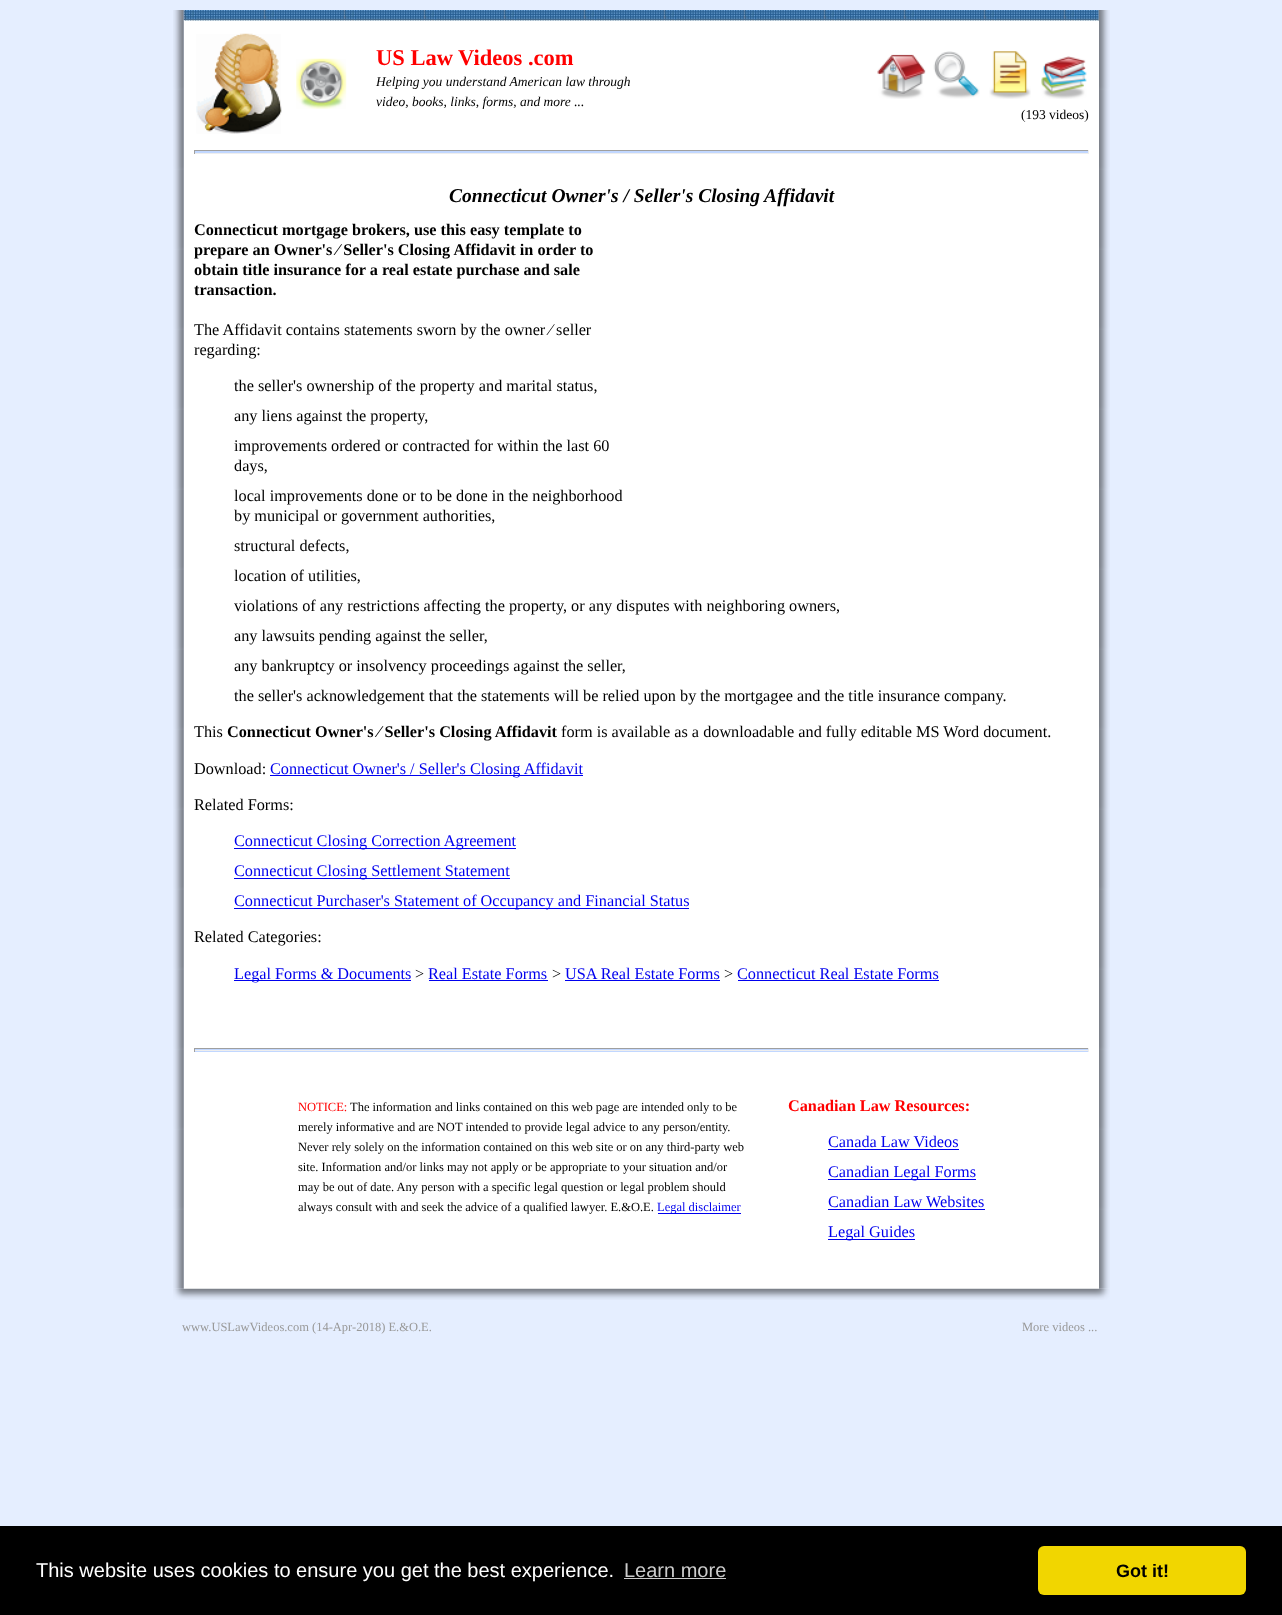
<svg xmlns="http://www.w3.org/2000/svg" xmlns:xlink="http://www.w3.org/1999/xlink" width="1282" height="1615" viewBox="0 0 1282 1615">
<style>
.cls-1{font:bold 22.5px Liberation Serif;fill:#ff0000}
.cls-2{font:italic 13.5px Liberation Serif;fill:#000000}
.cls-3{font:13.5px Liberation Serif;fill:#000000}
.cls-4{font:italic bold 19.5px Liberation Serif;fill:#000000}
.cls-5{font:bold 16.25px Liberation Serif;fill:#000000}
.cls-6{font:16.25px Liberation Serif;fill:#000000}
.cls-7{font:16.25px Liberation Serif;fill:#0000ee}
.cls-8{font:12.5px Liberation Serif;fill:#ff0000}
.cls-9{font:12.5px Liberation Serif;fill:#000000}
.cls-10{font:12.5px Liberation Serif;fill:#0000ee}
.cls-11{font:bold 16.25px Liberation Serif;fill:#ff0000}
.cls-12{font:12.5px Liberation Serif;fill:#999999}
.cls-13{font:20px Liberation Sans;fill:#ffffff}
.cls-14{font:20px Liberation Sans;fill:#cccccc}
.cls-15{font:bold 18px Liberation Sans;fill:#000000}
</style>
<rect width="100%" height="100%" fill="#e5eeff"/>
<image xlink:href="image0.png" x="173" y="10" width="11" height="1279"/>
<image xlink:href="image1.png" x="183" y="10" width="916" height="12"/>
<image xlink:href="image2.png" x="1098" y="10" width="12" height="1279"/>
<rect fill="#ffffff" x="184" y="21" width="915" height="1268"/>
<image xlink:href="image3.png" x="196" y="33" width="86" height="101"/>
<image xlink:href="image4.png" x="296" y="58" width="51" height="51"/>
<image xlink:href="image5.png" x="877" y="54" width="49" height="45"/>
<image xlink:href="image6.png" x="933" y="51" width="47" height="48"/>
<image xlink:href="image7.png" x="989" y="51" width="42" height="48"/>
<image xlink:href="image8.png" x="1041" y="56" width="46" height="43"/>
<rect fill="#c1d7ff" x="194" y="151" width="895" height="2"/>
<rect fill="#9f9f9f" x="194" y="150" width="895" height="1"/>
<rect fill="#eeeeee" x="1088" y="150" width="1" height="4"/>
<rect fill="#eeeeee" x="194" y="153" width="895" height="1"/>
<rect fill="#9f9f9f" x="194" y="150" width="1" height="4"/>
<rect fill="#0000ee" x="270" y="775" width="313" height="1"/>
<rect fill="#0000ee" x="234" y="848" width="282" height="1"/>
<rect fill="#0000ee" x="234" y="878" width="276" height="1"/>
<rect fill="#0000ee" x="234" y="908" width="455" height="1"/>
<rect fill="#0000ee" x="234" y="980" width="177" height="1"/>
<rect fill="#0000ee" x="429" y="980" width="119" height="1"/>
<rect fill="#0000ee" x="565" y="980" width="155" height="1"/>
<rect fill="#0000ee" x="738" y="980" width="201" height="1"/>
<rect fill="#c1d7ff" x="194" y="1049" width="895" height="3"/>
<rect fill="#9f9f9f" x="194" y="1048" width="895" height="1"/>
<rect fill="#eeeeee" x="1088" y="1048" width="1" height="4"/>
<rect fill="#eeeeee" x="194" y="1050" width="895" height="1"/>
<rect fill="#9f9f9f" x="194" y="1048" width="1" height="4"/>
<rect fill="#0000ee" x="658" y="1213" width="83" height="1"/>
<rect fill="#0000ee" x="828" y="1149" width="131" height="1"/>
<rect fill="#0000ee" x="828" y="1179" width="148" height="1"/>
<rect fill="#0000ee" x="828" y="1209" width="157" height="1"/>
<rect fill="#0000ee" x="828" y="1239" width="87" height="1"/>
<image xlink:href="image9.png" x="173" y="1288" width="937" height="12"/>
<rect fill="#000000" x="0" y="1526" width="1282" height="89"/>
<rect fill="#cccccc" x="624" y="1578" width="102" height="1"/>
<rect fill="#f1d600" x="1038" y="1546" width="208" height="49" rx="6"/>
<text class="cls-1" x="376" y="65">US Law Videos .com</text>
<text class="cls-2"><tspan x="376" y="86">Helping you understand American law through</tspan><tspan x="376" y="106">video, books, links, forms, and more ...</tspan></text>
<text class="cls-3" x="1021" y="119">(193 videos)</text>
<text class="cls-4" x="449" y="202">Connecticut Owner's / Seller's Closing Affidavit</text>
<text class="cls-5"><tspan x="194" y="235">Connecticut mortgage brokers, use this easy template to</tspan><tspan x="194" y="255">prepare an Owner's ⁄ Seller's Closing Affidavit in order to</tspan><tspan x="194" y="275">obtain title insurance for a real estate purchase and sale</tspan><tspan x="194" y="295">transaction.</tspan></text>
<text class="cls-6"><tspan x="194" y="335">The Affidavit contains statements sworn by the owner ⁄ seller</tspan><tspan x="194" y="355">regarding:</tspan></text>
<text class="cls-6"><tspan x="234" y="391">the seller's ownership of the property and marital status,</tspan><tspan x="234" y="421">any liens against the property,</tspan><tspan x="234" y="451">improvements ordered or contracted for within the last 60</tspan><tspan x="234" y="471">days,</tspan><tspan x="234" y="501">local improvements done or to be done in the neighborhood</tspan><tspan x="234" y="521">by municipal or government authorities,</tspan><tspan x="234" y="551">structural defects,</tspan><tspan x="234" y="581">location of utilities,</tspan><tspan x="234" y="611">violations of any restrictions affecting the property, or any disputes with neighboring owners,</tspan><tspan x="234" y="641">any lawsuits pending against the seller,</tspan><tspan x="234" y="671">any bankruptcy or insolvency proceedings against the seller,</tspan><tspan x="234" y="701">the seller's acknowledgement that the statements will be relied upon by the mortgagee and the title insurance company.</tspan></text>
<text class="cls-6" x="194" y="737">This</text>
<text class="cls-5" x="227" y="737">Connecticut Owner's ⁄ Seller's Closing Affidavit</text>
<text class="cls-6" x="561" y="737">form is available as a downloadable and fully editable MS Word document.</text>
<text class="cls-6" x="194" y="774">Download:</text>
<text class="cls-7" x="270" y="774">Connecticut Owner's / Seller's Closing Affidavit</text>
<text class="cls-6" x="194" y="810">Related Forms:</text>
<text class="cls-7"><tspan x="234" y="846">Connecticut Closing Correction Agreement</tspan><tspan x="234" y="876">Connecticut Closing Settlement Statement</tspan><tspan x="234" y="906">Connecticut Purchaser's Statement of Occupancy and Financial Status</tspan></text>
<text class="cls-6" x="194" y="942">Related Categories:</text>
<text class="cls-7" x="234" y="979">Legal Forms &amp; Documents</text>
<text class="cls-6" x="415" y="979">&gt;</text>
<text class="cls-7" x="428" y="979">Real Estate Forms</text>
<text class="cls-6" x="552" y="979">&gt;</text>
<text class="cls-7" x="565" y="979">USA Real Estate Forms</text>
<text class="cls-6" x="724" y="979">&gt;</text>
<text class="cls-7" x="737" y="979">Connecticut Real Estate Forms</text>
<text class="cls-8" x="298" y="1111">NOTICE:</text>
<text class="cls-9" x="350" y="1111">The information and links contained on this web page are intended only to be</text>
<text class="cls-9"><tspan x="298" y="1131">merely informative and are NOT intended to provide legal advice to any person/entity.</tspan><tspan x="298" y="1151">Never rely solely on the information contained on this web site or on any third-party web</tspan><tspan x="298" y="1171">site. Information and/or links may not apply or be appropriate to your situation and/or</tspan><tspan x="298" y="1191">may be out of date. Any person with a specific legal question or legal problem should</tspan><tspan x="298" y="1211">always consult with and seek the advice of a qualified lawyer. E.&amp;O.E.</tspan></text>
<text class="cls-10" x="657" y="1211">Legal disclaimer</text>
<text class="cls-11" x="788" y="1111">Canadian Law Resources:</text>
<text class="cls-7"><tspan x="828" y="1147">Canada Law Videos</tspan><tspan x="828" y="1177">Canadian Legal Forms</tspan><tspan x="828" y="1207">Canadian Law Websites</tspan><tspan x="828" y="1237">Legal Guides</tspan></text>
<text class="cls-12" x="182" y="1331">www.USLawVideos.com (14-Apr-2018) E.&amp;O.E.</text>
<text class="cls-12" x="1022" y="1331">More videos ...</text>
<text class="cls-13" x="36" y="1577">This website uses cookies to ensure you get the best experience.</text>
<text class="cls-14" x="624" y="1577">Learn more</text>
<text class="cls-15" x="1116" y="1577">Got it!</text>
</svg>
